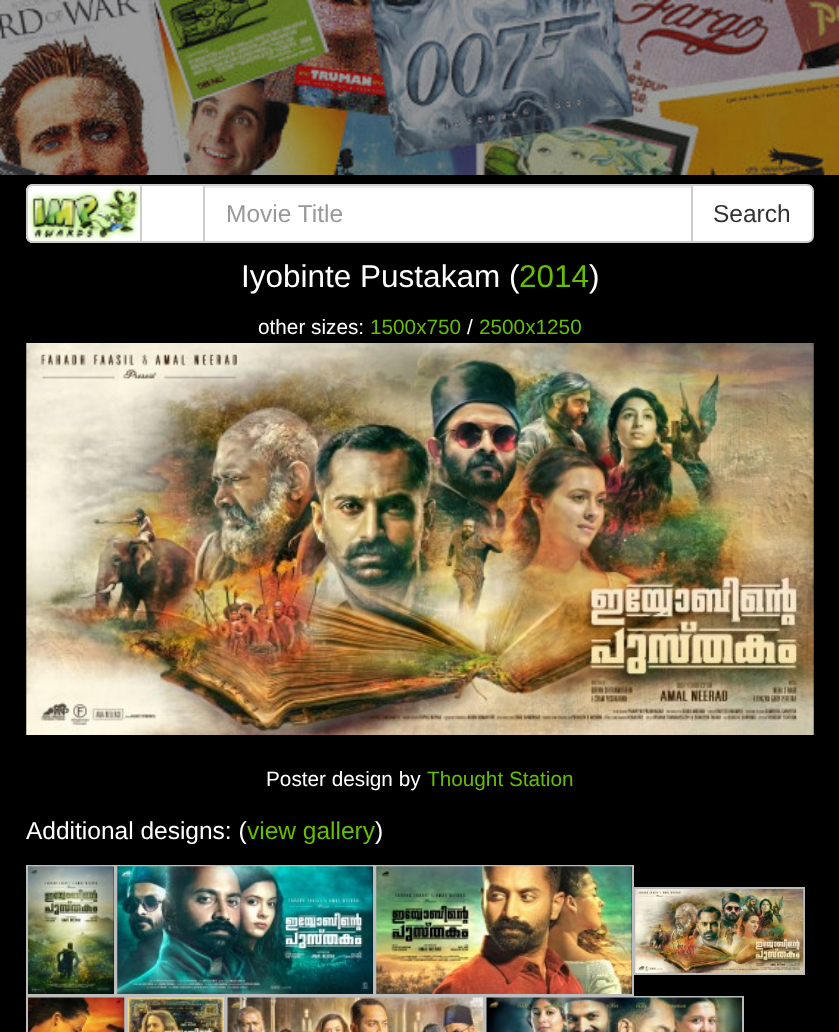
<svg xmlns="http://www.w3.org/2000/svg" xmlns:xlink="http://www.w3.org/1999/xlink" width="839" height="1032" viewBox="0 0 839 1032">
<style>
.cls-1{font:24.5px Liberation Sans;fill:#999999}
.cls-2{font:24.5px Liberation Sans;fill:#333333}
.cls-3{font:31.5px Liberation Sans;fill:#ffffff}
.cls-4{font:31.5px Liberation Sans;fill:#66bd04}
.cls-5{font:20.75px Liberation Sans;fill:#ffffff}
.cls-6{font:20.75px Liberation Sans;fill:#66bd04}
.cls-7{font:24.5px Liberation Sans;fill:#ffffff}
.cls-8{font:24.5px Liberation Sans;fill:#66bd04}
</style>
<rect width="100%" height="100%" fill="#000000"/>
<image xlink:href="image0.png" x="0" y="0" width="839" height="175"/>
<path fill="#ffffff" d="M33 184H144V243H33C29 243 26 240 26 236V191C26 187 29 184 33 184Z"/>
<image xlink:href="image1.png" x="28" y="186" width="112" height="55"/>
<path fill="none" stroke="#cccccc" stroke-width="2" d="M33 185H143V242H33C29.5 242 27 239.5 27 236V191C27 187.5 29.5 185 33 185Z"/>
<rect fill="#ffffff" stroke="#cccccc" stroke-width="2" x="141" y="185" width="63" height="57"/>
<rect fill="#ffffff" x="205" y="188" width="486" height="53"/>
<rect fill="#ececec" x="205" y="186" width="486" height="2"/>
<rect fill="none" stroke="#cccccc" stroke-width="2" x="204" y="185" width="488" height="57"/>
<path fill="#ffffff" stroke="#cccccc" stroke-width="2" d="M692 185H807C810.5 185 813 187.5 813 191V236C813 239.5 810.5 242 807 242H692Z"/>
<image xlink:href="image2.png" x="26" y="343" width="788" height="392"/>
<rect fill="none" stroke="#bcbcbc" stroke-width="2" x="27" y="866" width="88" height="129"/>
<rect fill="none" stroke="#bcbcbc" stroke-width="2" x="117" y="866" width="257" height="129"/>
<rect fill="none" stroke="#bcbcbc" stroke-width="2" x="376" y="866" width="257" height="129"/>
<image xlink:href="image3.png" x="28" y="866" width="86" height="128"/>
<image xlink:href="image4.png" x="117" y="866" width="256" height="128"/>
<image xlink:href="image5.png" x="376" y="866" width="256" height="128"/>
<rect fill="none" stroke="#bcbcbc" stroke-width="2" x="635" y="888" width="169" height="86"/>
<image xlink:href="image6.png" x="635" y="889" width="169" height="84"/>
<rect fill="none" stroke="#bcbcbc" stroke-width="2" x="27" y="997" width="98" height="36"/>
<rect fill="none" stroke="#bcbcbc" stroke-width="2" x="127" y="997" width="98" height="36"/>
<rect fill="none" stroke="#bcbcbc" stroke-width="2" x="227" y="997" width="257" height="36"/>
<rect fill="none" stroke="#bcbcbc" stroke-width="2" x="486" y="997" width="257" height="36"/>
<image xlink:href="image7.png" x="28" y="997" width="97" height="35"/>
<image xlink:href="image8.png" x="127" y="997" width="97" height="35"/>
<image xlink:href="image9.png" x="227" y="997" width="256" height="35"/>
<image xlink:href="image10.png" x="486" y="997" width="256" height="35"/>
<text class="cls-1" x="226" y="222">Movie Title</text>
<text class="cls-2" x="713" y="222">Search</text>
<text class="cls-3" x="241" y="287">Iyobinte Pustakam (</text>
<text class="cls-4" x="519" y="287">2014</text>
<text class="cls-3" x="589" y="287">)</text>
<text class="cls-5" x="258" y="334">other sizes:</text>
<text class="cls-6" x="370" y="334">1500x750</text>
<text class="cls-5" x="467" y="334">/</text>
<text class="cls-6" x="479" y="334">2500x1250</text>
<text class="cls-5" x="266" y="786">Poster design by</text>
<text class="cls-6" x="427" y="786">Thought Station</text>
<text class="cls-7" x="26" y="839">Additional designs: (</text>
<text class="cls-8" x="247" y="839">view gallery</text>
<text class="cls-7" x="375" y="839">)</text>
</svg>
